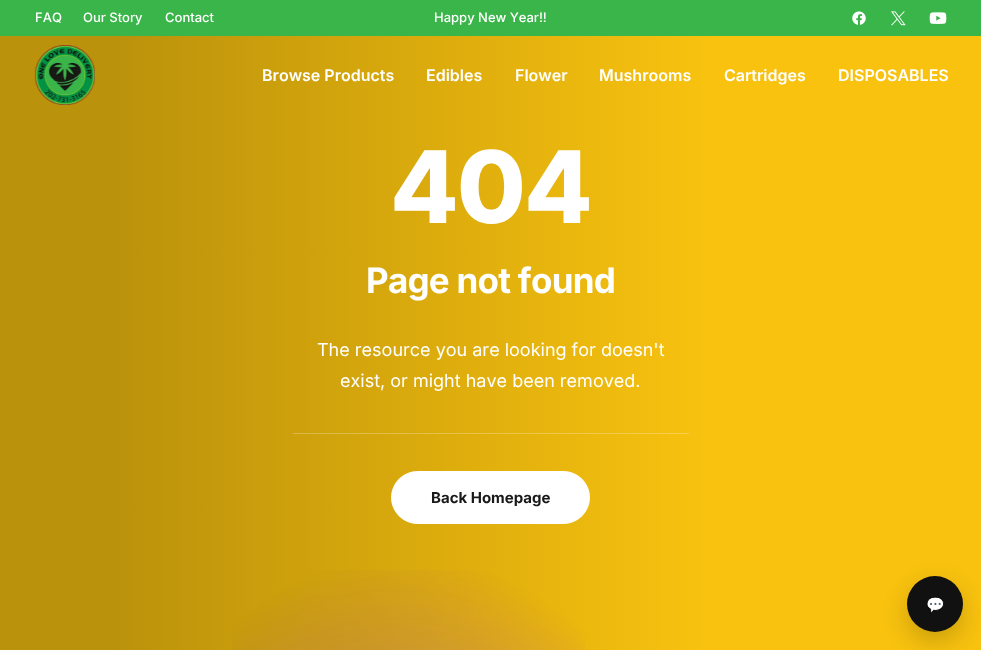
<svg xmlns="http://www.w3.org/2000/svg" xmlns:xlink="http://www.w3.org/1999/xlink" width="981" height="650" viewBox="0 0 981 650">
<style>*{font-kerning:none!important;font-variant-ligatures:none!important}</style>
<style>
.cls-1{font:500 13px Inter;fill:#ffffff}
.cls-2{font:600 16px Inter;fill:#ffffff}
.cls-3{font:800 100px Inter;letter-spacing:-2px;fill:#ffffff}
.cls-4{font:bold 35px Inter;letter-spacing:-0.75px;fill:#ffffff}
.cls-5{font:18px Inter;fill:#ffffff}
.cls-6{font:bold 15px Inter;fill:#191919}
.cls-7{font:bold 15px Noto Color Emoji;fill:#ffffff}
</style>
<defs>
<linearGradient id="g1" gradientUnits="userSpaceOnUse" x1="-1" y1="343" x2="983" y2="343"><stop offset="0.12" stop-color="#bb920b"/><stop offset="0.72" stop-color="#f8c20f"/></linearGradient>
<linearGradient id="g2" gradientUnits="userSpaceOnUse" x1="-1" y1="343" x2="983" y2="343"><stop offset="0.12" stop-color="#ccad48"/><stop offset="0.72" stop-color="#fad14b"/></linearGradient>
</defs>
<rect width="100%" height="100%" fill="#ffffff"/>
<rect fill="#3ab549" x="0" y="0" width="981" height="36"/>
<image xlink:href="image0.png" x="852" y="11" width="14" height="14"/>
<image xlink:href="image1.png" x="891" y="11" width="15" height="15"/>
<image xlink:href="image2.png" x="929" y="12" width="18" height="12"/>
<rect fill="url(#g1)" x="0" y="36" width="981" height="614"/>
<image xlink:href="image3.png" x="34" y="45" width="61" height="60"/>
<rect fill="url(#g2)" x="293" y="433" width="396" height="1"/>
<rect fill="#ffffff" stroke="#ffffff" x="391.5" y="471.5" width="198" height="52" rx="26"/>
<image xlink:href="image4.png" x="232" y="570" width="353" height="80"/>
<rect fill="#000000" fill-opacity="0.18" filter="blur(12px)" x="907" y="586" width="56" height="56" rx="28"/>
<circle fill="#111111" cx="935" cy="604" r="28"/>
<text class="cls-1" x="35" y="22">FAQ</text>
<text class="cls-1" x="83" y="22">Our Story</text>
<text class="cls-1" x="165" y="22">Contact</text>
<text class="cls-1" x="434" y="22">Happy New Year!!</text>
<text class="cls-2" x="262" y="81">Browse Products</text>
<text class="cls-2" x="426" y="81">Edibles</text>
<text class="cls-2" x="515" y="81">Flower</text>
<text class="cls-2" x="599" y="81">Mushrooms</text>
<text class="cls-2" x="724" y="81">Cartridges</text>
<text class="cls-2" x="838" y="81">DISPOSABLES</text>
<text class="cls-3" x="390" y="223">404</text>
<text class="cls-4" x="366" y="293">Page not found</text>
<text class="cls-5" x="317" y="356">The resource you are looking for doesn't</text>
<text class="cls-5" x="340" y="387">exist, or might have been removed.</text>
<text class="cls-6" x="431" y="503">Back Homepage</text>
<text class="cls-7" x="926" y="610">💬</text>
</svg>
